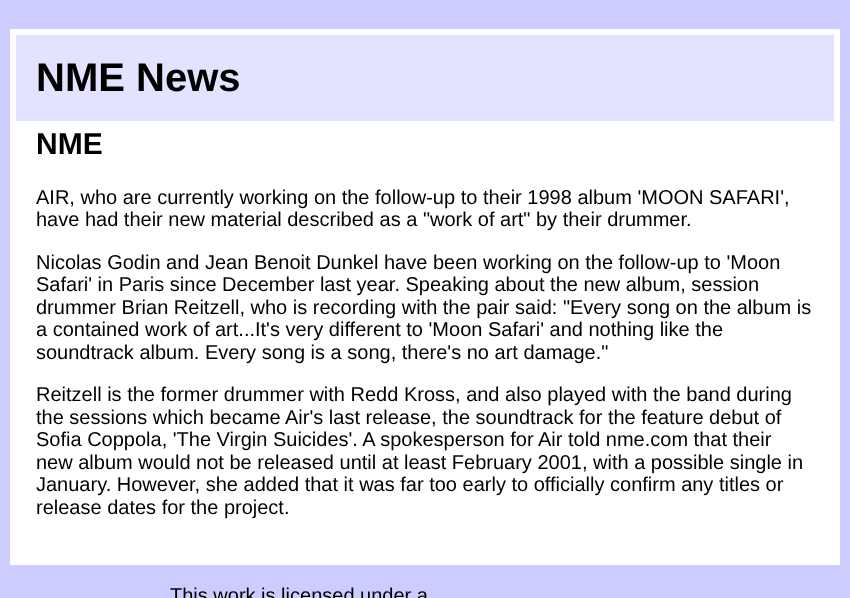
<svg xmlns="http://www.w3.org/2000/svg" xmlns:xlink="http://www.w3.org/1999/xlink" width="850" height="598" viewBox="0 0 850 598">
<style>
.cls-1{font:bold 40px Liberation Sans;fill:#000000}
.cls-2{font:bold 30px Liberation Sans;fill:#000000}
.cls-3{font:20px Liberation Sans;fill:#000000}
</style>
<rect width="100%" height="100%" fill="#ccccff"/>
<rect fill="none" stroke="#ffffff" stroke-width="6" x="13" y="32" width="824" height="530"/>
<rect fill="#ffffff" x="16" y="121" width="818" height="438"/>
<rect fill="#e3e3ff" x="16" y="35" width="818" height="86"/>
<text class="cls-1" x="36" y="91">NME News</text>
<text class="cls-2" x="36" y="154">NME</text>
<text class="cls-3"><tspan x="36" y="204">AIR, who are currently working on the follow-up to their 1998 album 'MOON SAFARI',</tspan><tspan x="36" y="226">have had their new material described as a "work of art" by their drummer.</tspan></text>
<text class="cls-3"><tspan x="36" y="269">Nicolas Godin and Jean Benoit Dunkel have been working on the follow-up to 'Moon</tspan><tspan x="36" y="291">Safari' in Paris since December last year. Speaking about the new album, session</tspan><tspan x="36" y="314">drummer Brian Reitzell, who is recording with the pair said: "Every song on the album is</tspan><tspan x="36" y="336">a contained work of art...It's very different to 'Moon Safari' and nothing like the</tspan><tspan x="36" y="359">soundtrack album. Every song is a song, there's no art damage."</tspan></text>
<text class="cls-3"><tspan x="36" y="401">Reitzell is the former drummer with Redd Kross, and also played with the band during</tspan><tspan x="36" y="424">the sessions which became Air's last release, the soundtrack for the feature debut of</tspan><tspan x="36" y="446">Sofia Coppola, 'The Virgin Suicides'. A spokesperson for Air told nme.com that their</tspan><tspan x="36" y="469">new album would not be released until at least February 2001, with a possible single in</tspan><tspan x="36" y="491">January. However, she added that it was far too early to officially confirm any titles or</tspan><tspan x="36" y="514">release dates for the project.</tspan></text>
<text class="cls-3" x="170" y="602">This work is licensed under a</text>
</svg>
